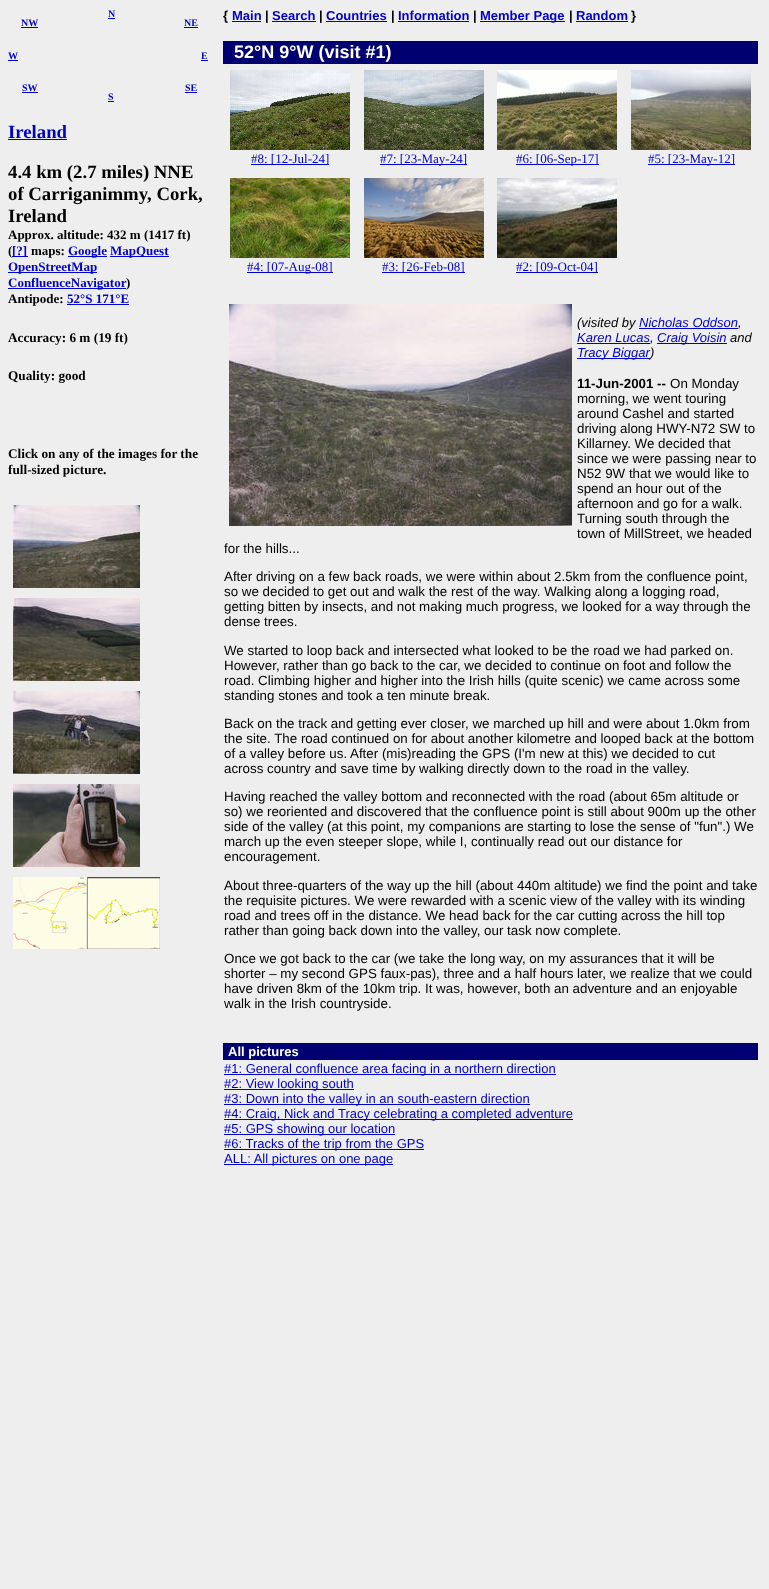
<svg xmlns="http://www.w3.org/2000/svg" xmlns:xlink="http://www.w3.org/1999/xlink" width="769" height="1589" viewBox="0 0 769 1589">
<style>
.cls-1{font:bold 10px Liberation Serif;fill:#0000cc}
.cls-2{font:bold 18.75px Liberation Serif;fill:#0000cc}
.cls-3{font:bold 18.75px Liberation Serif;fill:#000000}
.cls-4{font:bold 13px Liberation Serif;fill:#000000}
.cls-5{font:bold 13px Liberation Serif;fill:#0000cc}
.cls-6{font:bold 13.25px Liberation Serif;fill:#000000}
.cls-7{font:bold 13px Liberation Sans;fill:#000000}
.cls-8{font:bold 13px Liberation Sans;fill:#0000cc}
.cls-9{font:bold 18px Liberation Sans;fill:#ffffff}
.cls-10{font:13px Liberation Serif;fill:#0000cc}
.cls-11{font:italic 13px Liberation Sans;fill:#000000}
.cls-12{font:italic 13px Liberation Sans;fill:#0000cc}
.cls-13{font:bold 13.35px Liberation Sans;fill:#000000}
.cls-14{font:13.35px Liberation Sans;fill:#000000}
.cls-15{font:bold 13px Liberation Sans;fill:#ffffff}
.cls-16{font:13px Liberation Sans;fill:#0000cc}
</style>
<rect width="100%" height="100%" fill="#eeeeee"/>
<rect fill="#0000cc" x="8" y="60" width="10" height="1"/>
<rect fill="#0000cc" x="108" y="18" width="7" height="1"/>
<rect fill="#0000cc" x="21" y="27" width="17" height="1"/>
<rect fill="#0000cc" x="184" y="27" width="14" height="1"/>
<rect fill="#0000cc" x="22" y="92" width="16" height="1"/>
<rect fill="#0000cc" x="185" y="92" width="12" height="1"/>
<rect fill="#0000cc" x="108" y="101" width="6" height="1"/>
<rect fill="#0000cc" x="201" y="60" width="7" height="1"/>
<rect fill="#0000cc" x="8" y="139" width="59" height="1"/>
<rect fill="#0000cc" x="12" y="256" width="16" height="1"/>
<rect fill="#0000cc" x="68" y="256" width="39" height="1"/>
<rect fill="#0000cc" x="110" y="256" width="59" height="1"/>
<rect fill="#0000cc" x="8" y="272" width="89" height="1"/>
<rect fill="#0000cc" x="8" y="288" width="118" height="1"/>
<rect fill="#0000cc" x="67" y="304" width="62" height="1"/>
<image xlink:href="image0.png" x="13" y="505" width="127" height="83"/>
<image xlink:href="image1.png" x="13" y="598" width="127" height="83"/>
<image xlink:href="image2.png" x="13" y="691" width="127" height="83"/>
<image xlink:href="image3.png" x="13" y="784" width="127" height="83"/>
<image xlink:href="image4.png" x="13" y="877" width="147" height="72"/>
<rect fill="#0000cc" x="232" y="21" width="29" height="1"/>
<rect fill="#0000cc" x="272" y="21" width="44" height="1"/>
<rect fill="#0000cc" x="326" y="21" width="61" height="1"/>
<rect fill="#0000cc" x="398" y="21" width="71" height="1"/>
<rect fill="#0000cc" x="480" y="21" width="85" height="1"/>
<rect fill="#0000cc" x="576" y="21" width="52" height="1"/>
<rect fill="#000070" x="223" y="41" width="535" height="23"/>
<image xlink:href="image5.png" x="230" y="70" width="120" height="80"/>
<rect fill="#0000cc" x="251" y="164" width="78" height="1"/>
<image xlink:href="image6.png" x="364" y="70" width="120" height="80"/>
<rect fill="#0000cc" x="380" y="164" width="87" height="1"/>
<image xlink:href="image7.png" x="497" y="70" width="120" height="80"/>
<rect fill="#0000cc" x="516" y="164" width="83" height="1"/>
<image xlink:href="image8.png" x="631" y="70" width="120" height="80"/>
<rect fill="#0000cc" x="648" y="164" width="87" height="1"/>
<image xlink:href="image9.png" x="230" y="178" width="120" height="80"/>
<rect fill="#0000cc" x="247" y="272" width="86" height="1"/>
<image xlink:href="image10.png" x="364" y="178" width="120" height="80"/>
<rect fill="#0000cc" x="382" y="272" width="83" height="1"/>
<image xlink:href="image11.png" x="497" y="178" width="120" height="80"/>
<rect fill="#0000cc" x="516" y="272" width="82" height="1"/>
<image xlink:href="image12.png" x="229" y="304" width="343" height="222"/>
<rect fill="#0000cc" x="639" y="328" width="99" height="1"/>
<rect fill="#0000cc" x="577" y="343" width="73" height="1"/>
<rect fill="#0000cc" x="657" y="343" width="70" height="1"/>
<rect fill="#0000cc" x="577" y="358" width="73" height="1"/>
<rect fill="#000070" x="223" y="1043" width="535" height="17"/>
<rect fill="#0000cc" x="224" y="1074" width="332" height="1"/>
<rect fill="#0000cc" x="224" y="1089" width="130" height="1"/>
<rect fill="#0000cc" x="224" y="1104" width="306" height="1"/>
<rect fill="#0000cc" x="224" y="1119" width="349" height="1"/>
<rect fill="#0000cc" x="224" y="1134" width="171" height="1"/>
<rect fill="#0000cc" x="224" y="1149" width="200" height="1"/>
<rect fill="#0000cc" x="224" y="1164" width="169" height="1"/>
<text class="cls-1" x="8" y="59">W</text>
<text class="cls-1" x="108" y="17">N</text>
<text class="cls-1" x="21" y="26">NW</text>
<text class="cls-1" x="184" y="26">NE</text>
<text class="cls-1" x="22" y="91">SW</text>
<text class="cls-1" x="185" y="91">SE</text>
<text class="cls-1" x="108" y="100">S</text>
<text class="cls-1" x="201" y="59">E</text>
<text class="cls-2" x="8" y="138">Ireland</text>
<text class="cls-3"><tspan x="8" y="178">4.4 km (2.7 miles) NNE</tspan><tspan x="8" y="200">of Carriganimmy, Cork,</tspan><tspan x="8" y="222">Ireland</tspan></text>
<text class="cls-4"><tspan x="8" y="239">Approx. altitude: 432 m (1417 ft)</tspan><tspan x="8" y="255">(</tspan></text>
<text class="cls-5" x="12" y="255">[?]</text>
<text class="cls-4" x="31" y="255">maps:</text>
<text class="cls-5" x="68" y="255">Google</text>
<text class="cls-5" x="110" y="255">MapQuest</text>
<text class="cls-5"><tspan x="8" y="271">OpenStreetMap</tspan><tspan x="8" y="287">ConfluenceNavigator</tspan></text>
<text class="cls-4" x="126" y="287">)</text>
<text class="cls-4" x="8" y="303">Antipode:</text>
<text class="cls-5" x="67" y="303">52°S 171°E</text>
<text class="cls-6" x="8" y="342">Accuracy: 6 m (19 ft)</text>
<text class="cls-6" x="8" y="380">Quality: good</text>
<text class="cls-6"><tspan x="8" y="458">Click on any of the images for the</tspan><tspan x="8" y="474">full-sized picture.</tspan></text>
<text class="cls-7" x="223" y="20">{</text>
<text class="cls-8" x="232" y="20">Main</text>
<text class="cls-7" x="265" y="20">|</text>
<text class="cls-8" x="272" y="20">Search</text>
<text class="cls-7" x="319" y="20">|</text>
<text class="cls-8" x="326" y="20">Countries</text>
<text class="cls-7" x="391" y="20">|</text>
<text class="cls-8" x="398" y="20">Information</text>
<text class="cls-7" x="473" y="20">|</text>
<text class="cls-8" x="480" y="20">Member Page</text>
<text class="cls-7" x="569" y="20">|</text>
<text class="cls-8" x="576" y="20">Random</text>
<text class="cls-7" x="631" y="20">}</text>
<text class="cls-9" x="234" y="58">52°N 9°W (visit #1)</text>
<text class="cls-10" x="251" y="163">#8: [12-Jul-24]</text>
<text class="cls-10" x="380" y="163">#7: [23-May-24]</text>
<text class="cls-10" x="516" y="163">#6: [06-Sep-17]</text>
<text class="cls-10" x="648" y="163">#5: [23-May-12]</text>
<text class="cls-10" x="247" y="271">#4: [07-Aug-08]</text>
<text class="cls-10" x="382" y="271">#3: [26-Feb-08]</text>
<text class="cls-10" x="516" y="271">#2: [09-Oct-04]</text>
<text class="cls-11" x="577" y="327">(visited by</text>
<text class="cls-12" x="639" y="327">Nicholas Oddson</text>
<text class="cls-11" x="738" y="327">,</text>
<text class="cls-12" x="577" y="342">Karen Lucas</text>
<text class="cls-11" x="650" y="342">,</text>
<text class="cls-12" x="657" y="342">Craig Voisin</text>
<text class="cls-11" x="730" y="342">and</text>
<text class="cls-12" x="577" y="357">Tracy Biggar</text>
<text class="cls-11" x="650" y="357">)</text>
<text class="cls-13" x="577" y="388">11-Jun-2001 --</text>
<text class="cls-14" x="670" y="388">On Monday</text>
<text class="cls-14"><tspan x="577" y="403">morning, we went touring</tspan><tspan x="577" y="418">around Cashel and started</tspan><tspan x="577" y="433">driving along HWY-N72 SW to</tspan><tspan x="577" y="448">Killarney. We decided that</tspan><tspan x="577" y="463">since we were passing near to</tspan><tspan x="577" y="478">N52 9W that we would like to</tspan><tspan x="577" y="493">spend an hour out of the</tspan><tspan x="577" y="508">afternoon and go for a walk.</tspan><tspan x="577" y="523">Turning south through the</tspan><tspan x="577" y="538">town of MillStreet, we headed</tspan></text>
<text class="cls-14" x="224" y="553">for the hills...</text>
<text class="cls-14"><tspan x="224" y="581">After driving on a few back roads, we were within about 2.5km from the confluence point,</tspan><tspan x="224" y="596">so we decided to get out and walk the rest of the way. Walking along a logging road,</tspan><tspan x="224" y="611">getting bitten by insects, and not making much progress, we looked for a way through the</tspan><tspan x="224" y="626">dense trees.</tspan></text>
<text class="cls-14"><tspan x="224" y="655">We started to loop back and intersected what looked to be the road we had parked on.</tspan><tspan x="224" y="670">However, rather than go back to the car, we decided to continue on foot and follow the</tspan><tspan x="224" y="685">road. Climbing higher and higher into the Irish hills (quite scenic) we came across some</tspan><tspan x="224" y="700">standing stones and took a ten minute break.</tspan></text>
<text class="cls-14"><tspan x="224" y="728">Back on the track and getting ever closer, we marched up hill and were about 1.0km from</tspan><tspan x="224" y="743">the site. The road continued on for about another kilometre and looped back at the bottom</tspan><tspan x="224" y="758">of a valley before us.</tspan></text>
<text class="cls-14" x="350" y="758">After (mis)reading the GPS (I'm new at this) we decided to cut</text>
<text class="cls-14" x="224" y="773">across country and save time by walking directly down to the road in the valley.</text>
<text class="cls-14"><tspan x="224" y="801">Having reached the valley bottom and reconnected with the road (about 65m altitude or</tspan><tspan x="224" y="816">so) we reoriented and discovered that the confluence point is still about 900m up the other</tspan><tspan x="224" y="831">side of the valley (at this point, my companions are starting to lose the sense of "fun".) We</tspan><tspan x="224" y="846">march up the even steeper slope, while I, continually read out our distance for</tspan><tspan x="224" y="861">encouragement.</tspan></text>
<text class="cls-14"><tspan x="224" y="890">About three-quarters of the way up the hill (about 440m altitude) we find the point and take</tspan><tspan x="224" y="905">the requisite pictures. We were rewarded with a scenic view of the valley with its winding</tspan><tspan x="224" y="920">road and trees off in the distance. We head back for the car cutting across the hill top</tspan><tspan x="224" y="935">rather than going back down into the valley, our task now complete.</tspan></text>
<text class="cls-14"><tspan x="224" y="963">Once we got back to the car (we take the long way, on my assurances that it will be</tspan><tspan x="224" y="978">shorter – my second GPS faux-pas), three and a half hours later, we realize that we could</tspan><tspan x="224" y="993">have driven 8km of the 10km trip. It was, however, both an adventure and an enjoyable</tspan><tspan x="224" y="1008">walk in the Irish countryside.</tspan></text>
<text class="cls-15" x="228" y="1056">All pictures</text>
<text class="cls-16"><tspan x="224" y="1073">#1: General confluence area facing in a northern direction</tspan><tspan x="224" y="1088">#2: View looking south</tspan><tspan x="224" y="1103">#3: Down into the valley in an south-eastern direction</tspan><tspan x="224" y="1118">#4: Craig, Nick and Tracy celebrating a completed adventure</tspan><tspan x="224" y="1133">#5: GPS showing our location</tspan><tspan x="224" y="1148">#6: Tracks of the trip from the GPS</tspan><tspan x="224" y="1163">ALL: All pictures on one page</tspan></text>
</svg>
